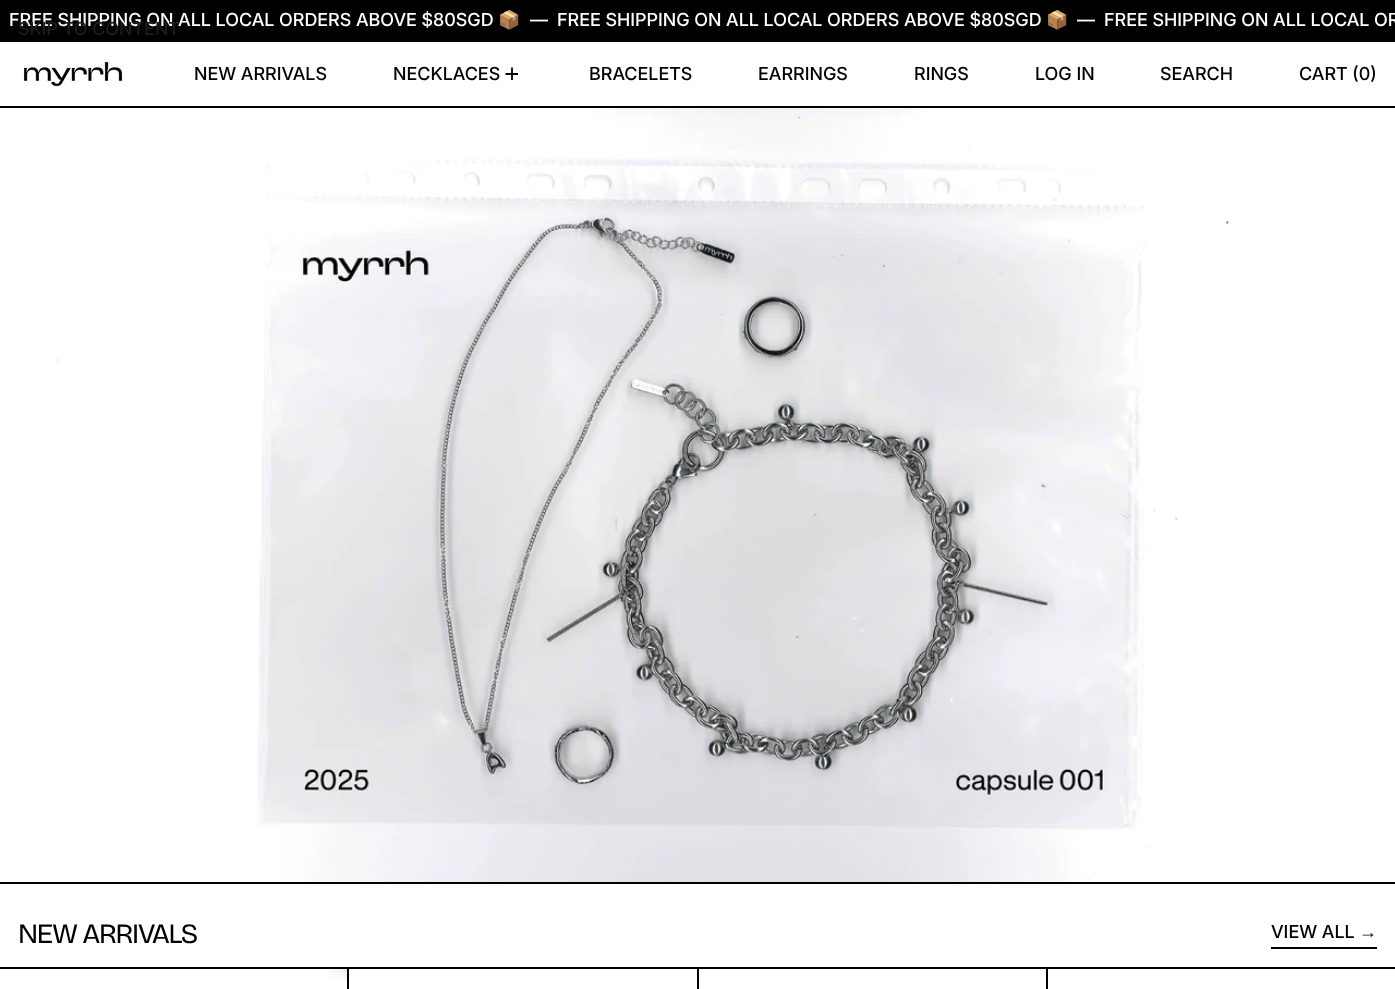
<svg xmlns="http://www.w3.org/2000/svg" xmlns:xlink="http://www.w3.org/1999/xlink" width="1395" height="989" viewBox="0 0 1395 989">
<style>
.cls-1{font:500 18px Inter;fill:#ffffff}
.cls-2{font:18px Noto Color Emoji;fill:#ffffff}
.cls-3{font:500 18px Inter;fill:#1c1c1c}
.cls-4{font:500 18px Inter;fill:#000000}
.cls-5{font:28px Bricolage Grotesque;letter-spacing:-1.4px;fill:#000000}
.cls-6{font:18px Liberation Sans;fill:#000000}
</style>
<rect width="100%" height="100%" fill="#ffffff"/>
<rect fill="#000000" x="0" y="0" width="1395" height="42"/>
<rect fill="#000000" x="0" y="106" width="1395" height="2"/>
<image xlink:href="image0.png" x="23" y="61" width="100" height="26"/>
<path fill="none" stroke="#000000" stroke-width="1.8" d="M512 67.5V80M505.5 74H518"/>
<rect fill="#000000" x="0" y="882" width="1395" height="2"/>
<image xlink:href="image1.png" x="56" y="108" width="1173" height="774"/>
<rect fill="#000000" x="0" y="967" width="1395" height="2"/>
<rect fill="#000000" x="1271" y="947" width="106" height="2"/>
<rect fill="#000000" x="347" y="969" width="701" height="20"/>
<image xlink:href="image2.png" x="329" y="969" width="18" height="10"/>
<rect fill="#ffffff" x="349" y="969" width="348" height="20"/>
<rect fill="#ffffff" x="699" y="969" width="347" height="20"/>
<text class="cls-1" x="9" y="26">FREE SHIPPING ON ALL LOCAL ORDERS ABOVE $80SGD</text>
<text class="cls-2" x="498" y="26">📦</text>
<text class="cls-1" x="530" y="26">—</text>
<text class="cls-1" x="557" y="26">FREE SHIPPING ON ALL LOCAL ORDERS ABOVE $80SGD</text>
<text class="cls-2" x="1046" y="26">📦</text>
<text class="cls-1" x="1077" y="26">—</text>
<text class="cls-1" x="1104" y="26">FREE SHIPPING ON ALL LOCAL OR</text>
<text class="cls-3" x="18" y="35">SKIP TO CONTENT</text>
<text class="cls-4" x="194" y="80">NEW ARRIVALS</text>
<text class="cls-4" x="393" y="80">NECKLACES</text>
<text class="cls-4" x="589" y="80">BRACELETS</text>
<text class="cls-4" x="758" y="80">EARRINGS</text>
<text class="cls-4" x="914" y="80">RINGS</text>
<text class="cls-4" x="1035" y="80">LOG IN</text>
<text class="cls-4" x="1160" y="80">SEARCH</text>
<text class="cls-4" x="1299" y="80">CART (0)</text>
<text class="cls-5" x="18" y="943">NEW ARRIVALS</text>
<text class="cls-4" x="1271" y="938">VIEW ALL</text>
<text class="cls-6" x="1359" y="938">→</text>
</svg>
